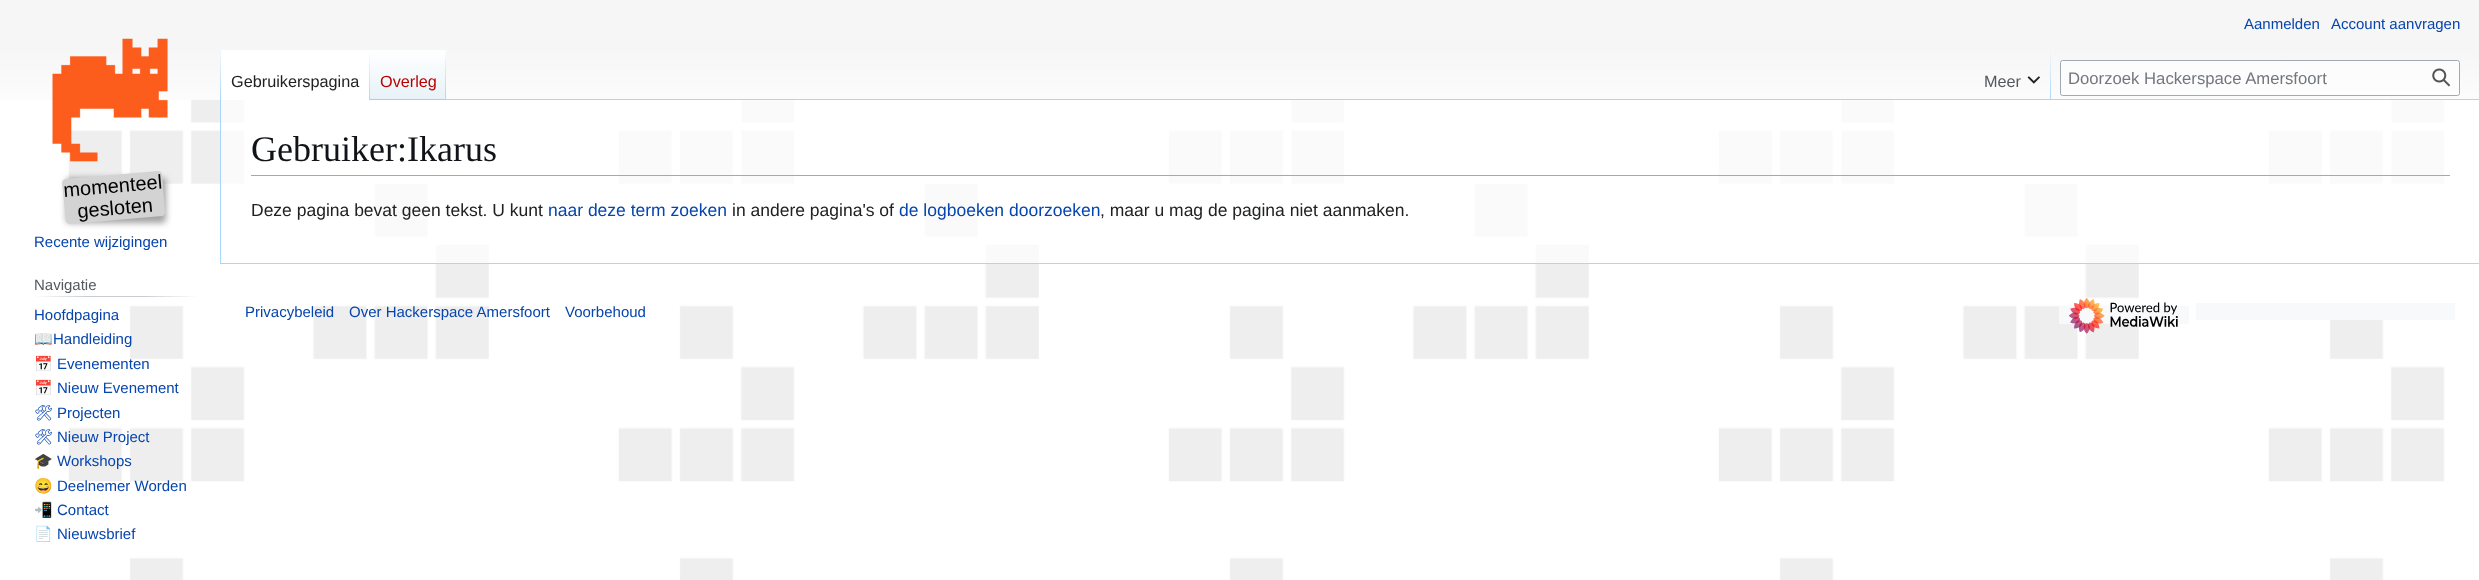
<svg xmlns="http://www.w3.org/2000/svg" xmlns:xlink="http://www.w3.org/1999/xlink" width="2479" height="580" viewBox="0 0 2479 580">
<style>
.cls-1{font:15px Liberation Sans;fill:#0645ad}
.cls-2{font:16.25px Liberation Sans;fill:#202122}
.cls-3{font:16.25px Liberation Sans;fill:#ba0000}
.cls-4{font:16.25px Liberation Sans;fill:#54595d}
.cls-5{font:16.7px Liberation Sans;fill:#72777d}
.cls-6{font:20px Liberation Sans;fill:#000000}
.cls-7{font:15px Liberation Sans;fill:#54595d}
.cls-8{font:15px Noto Color Emoji;fill:#0645ad}
.cls-9{font:15px Noto Emoji;fill:#0645ad}
.cls-10{font:36px Liberation Serif;fill:#101418}
.cls-11{font:17.5px Liberation Sans;fill:#202122}
.cls-12{font:17.5px Liberation Sans;fill:#0645ad}
</style>
<defs>
<linearGradient id="g1" gradientUnits="userSpaceOnUse" x1="1240" y1="0" x2="1240" y2="100"><stop offset="0.5" stop-color="#f6f6f6"/><stop offset="1" stop-color="#fcfcfc"/></linearGradient>
<linearGradient id="g2" gradientUnits="userSpaceOnUse" x1="221" y1="50" x2="221" y2="100"><stop offset="0" stop-color="#a7d7f9" stop-opacity="0"/><stop offset="1" stop-color="#a7d7f9"/></linearGradient>
<linearGradient id="g3" gradientUnits="userSpaceOnUse" x1="369" y1="50" x2="369" y2="100"><stop offset="0" stop-color="#ffffff"/><stop offset="1" stop-color="#a7d7f9"/></linearGradient>
<linearGradient id="g4" gradientUnits="userSpaceOnUse" x1="408" y1="100" x2="408" y2="50"><stop offset="0" stop-color="#77c1f6"/><stop offset="0.03" stop-color="#e8f2f8"/><stop offset="1" stop-color="#ffffff"/></linearGradient>
<linearGradient id="g5" gradientUnits="userSpaceOnUse" x1="446" y1="50" x2="446" y2="100"><stop offset="0" stop-color="#a7d7f9" stop-opacity="0"/><stop offset="1" stop-color="#a7d7f9"/></linearGradient>
<linearGradient id="g6" gradientUnits="userSpaceOnUse" x1="2051" y1="50" x2="2051" y2="100"><stop offset="0" stop-color="#a7d7f9" stop-opacity="0"/><stop offset="1" stop-color="#a7d7f9"/></linearGradient>
<linearGradient id="g7" gradientUnits="userSpaceOnUse" x1="34" y1="297" x2="198" y2="297"><stop offset="0" stop-color="#ffffff"/><stop offset="0.33" stop-color="#c8ccd1"/><stop offset="0.66" stop-color="#c8ccd1"/><stop offset="1" stop-color="#ffffff"/></linearGradient>
</defs>
<rect width="100%" height="100%" fill="#ffffff"/>
<image xlink:href="image0.png" x="68" y="100" width="2377" height="480"/>
<rect fill="url(#g1)" x="0" y="0" width="2479" height="100"/>
<rect fill="#a7d7f9" x="220" y="263" width="2259" height="1"/>
<rect fill="#a7d7f9" x="220" y="99" width="1" height="165"/>
<rect fill="url(#g2)" x="220" y="50" width="1" height="50"/>
<rect fill="#ffffff" x="221" y="50" width="148" height="50"/>
<rect fill="url(#g3)" x="369" y="50" width="1" height="50"/>
<rect fill="url(#g4)" x="370" y="50" width="76" height="50"/>
<rect fill="url(#g5)" x="445" y="50" width="1" height="50"/>
<rect fill="#a7d7f9" x="446" y="99" width="2033" height="1"/>
<rect fill="url(#g6)" x="2050" y="50" width="1" height="50"/>
<image xlink:href="image1.png" x="2027" y="76" width="13" height="8"/>
<rect fill="#ffffff" fill-opacity="0.5" stroke="#a2a9b1" x="2060.5" y="60.5" width="399" height="35" rx="2"/>
<image xlink:href="image2.png" x="2432" y="68" width="19" height="19"/>
<image xlink:href="image3.png" x="52" y="38" width="116" height="124"/>
<rect fill="#646464" fill-opacity="0.6" filter="blur(3px)" x="66" y="178" width="100" height="45" rx="4"/>
<path fill="#d3d3d3" d="M66 179L158 171C160 171 162 172 162 174L165 212C165 214 164 216 162 216L70 224C68 224 66 223 66 221L62 183C62 181 64 179 66 179Z"/>
<rect fill="url(#g7)" x="34" y="296" width="164" height="1"/>
<rect fill="#ffffff" fill-opacity="0.7" x="221" y="100" width="2224" height="163"/>
<rect fill="#a2a9b1" x="251" y="175" width="2199" height="1"/>
<rect fill="#f8f9fa" x="2059" y="306" width="130" height="18"/>
<image xlink:href="image4.png" x="2069" y="297" width="109" height="37"/>
<rect fill="#f8f9fa" x="2196" y="303" width="259" height="17"/>
<text class="cls-1" x="2244" y="29">Aanmelden</text>
<text class="cls-1" x="2331" y="29">Account aanvragen</text>
<text class="cls-2" x="231" y="87">Gebruikerspagina</text>
<text class="cls-3" x="380" y="87">Overleg</text>
<text class="cls-4" x="1984" y="87">Meer</text>
<text class="cls-5" x="2068" y="84">Doorzoek Hackerspace Amersfoort</text>
<text class="cls-6" x="64" y="197" transform="rotate(-5 64 197)">momenteel</text>
<text class="cls-6" x="78" y="218" transform="rotate(-5 78 218)">gesloten</text>
<text class="cls-1" x="34" y="247">Recente wijzigingen</text>
<text class="cls-7" x="34" y="290">Navigatie</text>
<text class="cls-1" x="34" y="320">Hoofdpagina</text>
<text class="cls-8" x="34" y="344">📖</text>
<text class="cls-1" x="53" y="344">Handleiding</text>
<text class="cls-8" x="34" y="369">📅</text>
<text class="cls-1" x="57" y="369">Evenementen</text>
<text class="cls-8" x="34" y="393">📅</text>
<text class="cls-1" x="57" y="393">Nieuw Evenement</text>
<text class="cls-9" x="34" y="418">🛠</text>
<text class="cls-1" x="57" y="418">Projecten</text>
<text class="cls-9" x="34" y="442">🛠</text>
<text class="cls-1" x="57" y="442">Nieuw Project</text>
<text class="cls-8" x="34" y="466">🎓</text>
<text class="cls-1" x="57" y="466">Workshops</text>
<text class="cls-8" x="34" y="491">😄</text>
<text class="cls-1" x="57" y="491">Deelnemer Worden</text>
<text class="cls-8" x="34" y="515">📲</text>
<text class="cls-1" x="57" y="515">Contact</text>
<text class="cls-8" x="34" y="539">📄</text>
<text class="cls-1" x="57" y="539">Nieuwsbrief</text>
<text class="cls-10" x="251" y="161">Gebruiker:Ikarus</text>
<text class="cls-11" x="251" y="216">Deze pagina bevat geen tekst. U kunt</text>
<text class="cls-12" x="548" y="216">naar deze term zoeken</text>
<text class="cls-11" x="732" y="216">in andere pagina's of</text>
<text class="cls-12" x="899" y="216">de logboeken doorzoeken</text>
<text class="cls-11" x="1100" y="216">, maar u mag de pagina niet aanmaken.</text>
<text class="cls-1" x="245" y="317">Privacybeleid</text>
<text class="cls-1" x="349" y="317">Over Hackerspace Amersfoort</text>
<text class="cls-1" x="565" y="317">Voorbehoud</text>
</svg>
